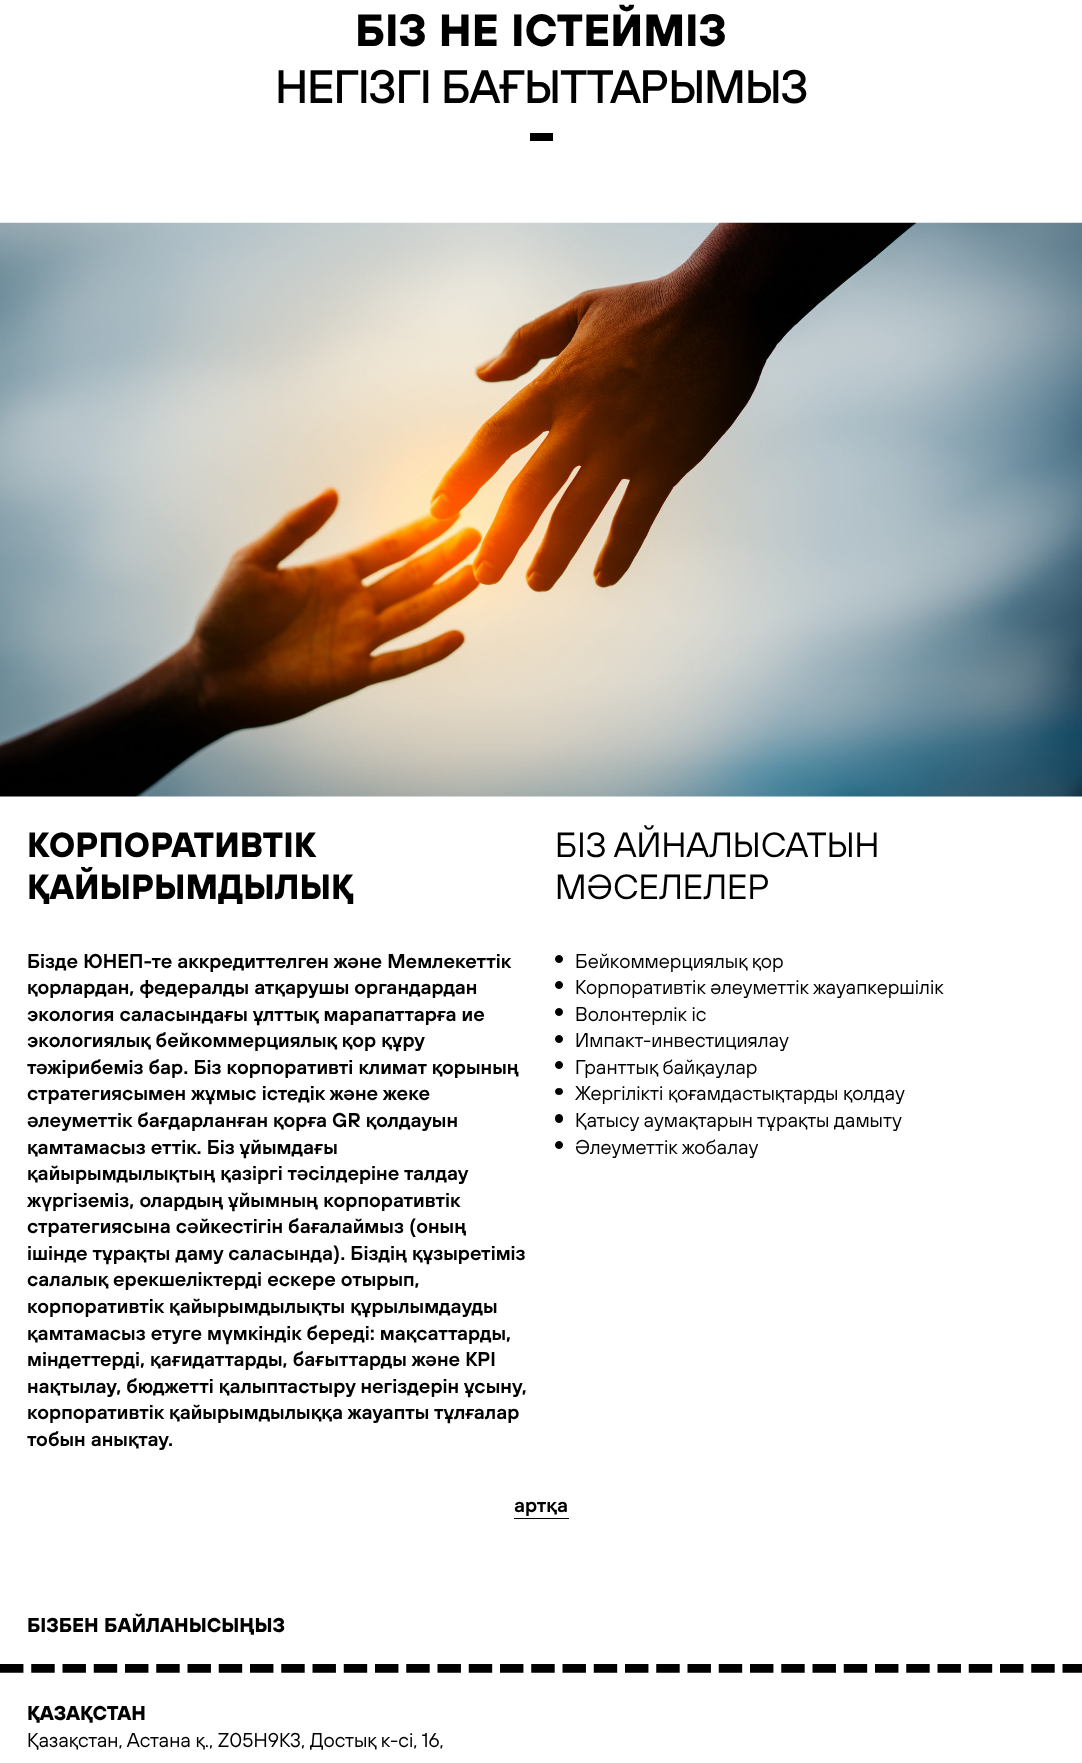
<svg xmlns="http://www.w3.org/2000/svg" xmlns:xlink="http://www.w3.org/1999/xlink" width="1082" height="1763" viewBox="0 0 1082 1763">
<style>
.cls-1{font:bold 45.1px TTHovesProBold;fill:#000000}
.cls-2{font:bold 45.1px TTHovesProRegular;fill:#000000}
.cls-3{font:bold 35px TTHovesProBold;fill:#000000}
.cls-4{font:35px TTHovesProRegular;fill:#000000}
.cls-5{font:600 20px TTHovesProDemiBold;fill:#000000}
.cls-6{font:20px TTHovesProRegular;fill:#000000}
.cls-7{font:bold 20px TTHovesProBold;fill:#000000}
</style>
<rect width="100%" height="100%" fill="#ffffff"/>
<rect fill="#000000" x="530" y="133" width="23" height="8"/>
<image xlink:href="image0.png" x="0" y="222" width="1082" height="575"/>
<circle fill="#000000" stroke="#000000" cx="559" cy="959" r="3.5"/>
<circle fill="#000000" stroke="#000000" cx="559" cy="985" r="3.5"/>
<circle fill="#000000" stroke="#000000" cx="559" cy="1012" r="3.5"/>
<circle fill="#000000" stroke="#000000" cx="559" cy="1039" r="3.5"/>
<circle fill="#000000" stroke="#000000" cx="559" cy="1065" r="3.5"/>
<rect fill="#000000" stroke="#000000" x="555.5" y="1088.5" width="7" height="6" rx="3"/>
<rect fill="#000000" stroke="#000000" x="555.5" y="1114.5" width="7" height="8" rx="3.5"/>
<circle fill="#000000" stroke="#000000" cx="559" cy="1145" r="3.5"/>
<rect fill="#000000" x="514" y="1518" width="55" height="1"/>
<image xlink:href="image1.png" x="0" y="1664" width="1082" height="9"/>
<text class="cls-1" x="355" y="46">БІЗ НЕ ІСТЕЙМІЗ</text>
<text class="cls-2" x="275" y="103">НЕГІЗГІ БАҒЫТТАРЫМЫЗ</text>
<text class="cls-3"><tspan x="27" y="857">КОРПОРАТИВТІК</tspan><tspan x="27" y="899">ҚАЙЫРЫМДЫЛЫҚ</tspan></text>
<text class="cls-4"><tspan x="555" y="857">БІЗ АЙНАЛЫСАТЫН</tspan><tspan x="555" y="899">МӘСЕЛЕЛЕР</tspan></text>
<text class="cls-5"><tspan x="27" y="968">Бізде ЮНЕП-те аккредиттелген және Мемлекеттік</tspan><tspan x="27" y="994">қорлардан, федералды атқарушы органдардан</tspan><tspan x="27" y="1021">экология саласындағы ұлттық марапаттарға ие</tspan><tspan x="27" y="1047">экологиялық бейкоммерциялық қор құру</tspan><tspan x="27" y="1074">тәжірибеміз бар. Біз корпоративті климат қорының</tspan><tspan x="27" y="1100">стратегиясымен жұмыс істедік және жеке</tspan><tspan x="27" y="1127">әлеуметтік бағдарланған қорға GR қолдауын</tspan><tspan x="27" y="1154">қамтамасыз еттік. Біз ұйымдағы</tspan><tspan x="27" y="1180">қайырымдылықтың қазіргі тәсілдеріне талдау</tspan><tspan x="27" y="1207">жүргіземіз, олардың ұйымның корпоративтік</tspan><tspan x="27" y="1233">стратегиясына сәйкестігін бағалаймыз (оның</tspan><tspan x="27" y="1260">ішінде тұрақты даму саласында). Біздің құзыретіміз</tspan><tspan x="27" y="1286">салалық ерекшеліктерді ескере отырып,</tspan><tspan x="27" y="1313">корпоративтік қайырымдылықты құрылымдауды</tspan><tspan x="27" y="1340">қамтамасыз етуге мүмкіндік береді: мақсаттарды,</tspan><tspan x="27" y="1366">міндеттерді, қағидаттарды, бағыттарды және KPI</tspan><tspan x="27" y="1393">нақтылау, бюджетті қалыптастыру негіздерін ұсыну,</tspan><tspan x="27" y="1419">корпоративтік қайырымдылыққа жауапты тұлғалар</tspan><tspan x="27" y="1446">тобын анықтау.</tspan></text>
<text class="cls-6"><tspan x="575" y="968">Бейкоммерциялық қор</tspan><tspan x="575" y="994">Корпоративтік әлеуметтік жауапкершілік</tspan><tspan x="575" y="1021">Волонтерлік іс</tspan><tspan x="575" y="1047">Импакт-инвестициялау</tspan><tspan x="575" y="1074">Гранттық байқаулар</tspan><tspan x="575" y="1100">Жергілікті қоғамдастықтарды қолдау</tspan><tspan x="575" y="1127">Қатысу аумақтарын тұрақты дамыту</tspan><tspan x="575" y="1154">Әлеуметтік жобалау</tspan></text>
<text class="cls-5" x="514" y="1512">артқа</text>
<text class="cls-7" x="27" y="1632">БІЗБЕН БАЙЛАНЫСЫҢЫЗ</text>
<text class="cls-7" x="27" y="1720">ҚАЗАҚСТАН</text>
<text class="cls-6" x="27" y="1747">Қазақстан, Астана қ., Z05H9K3, Достық к-сі, 16,</text>
</svg>
